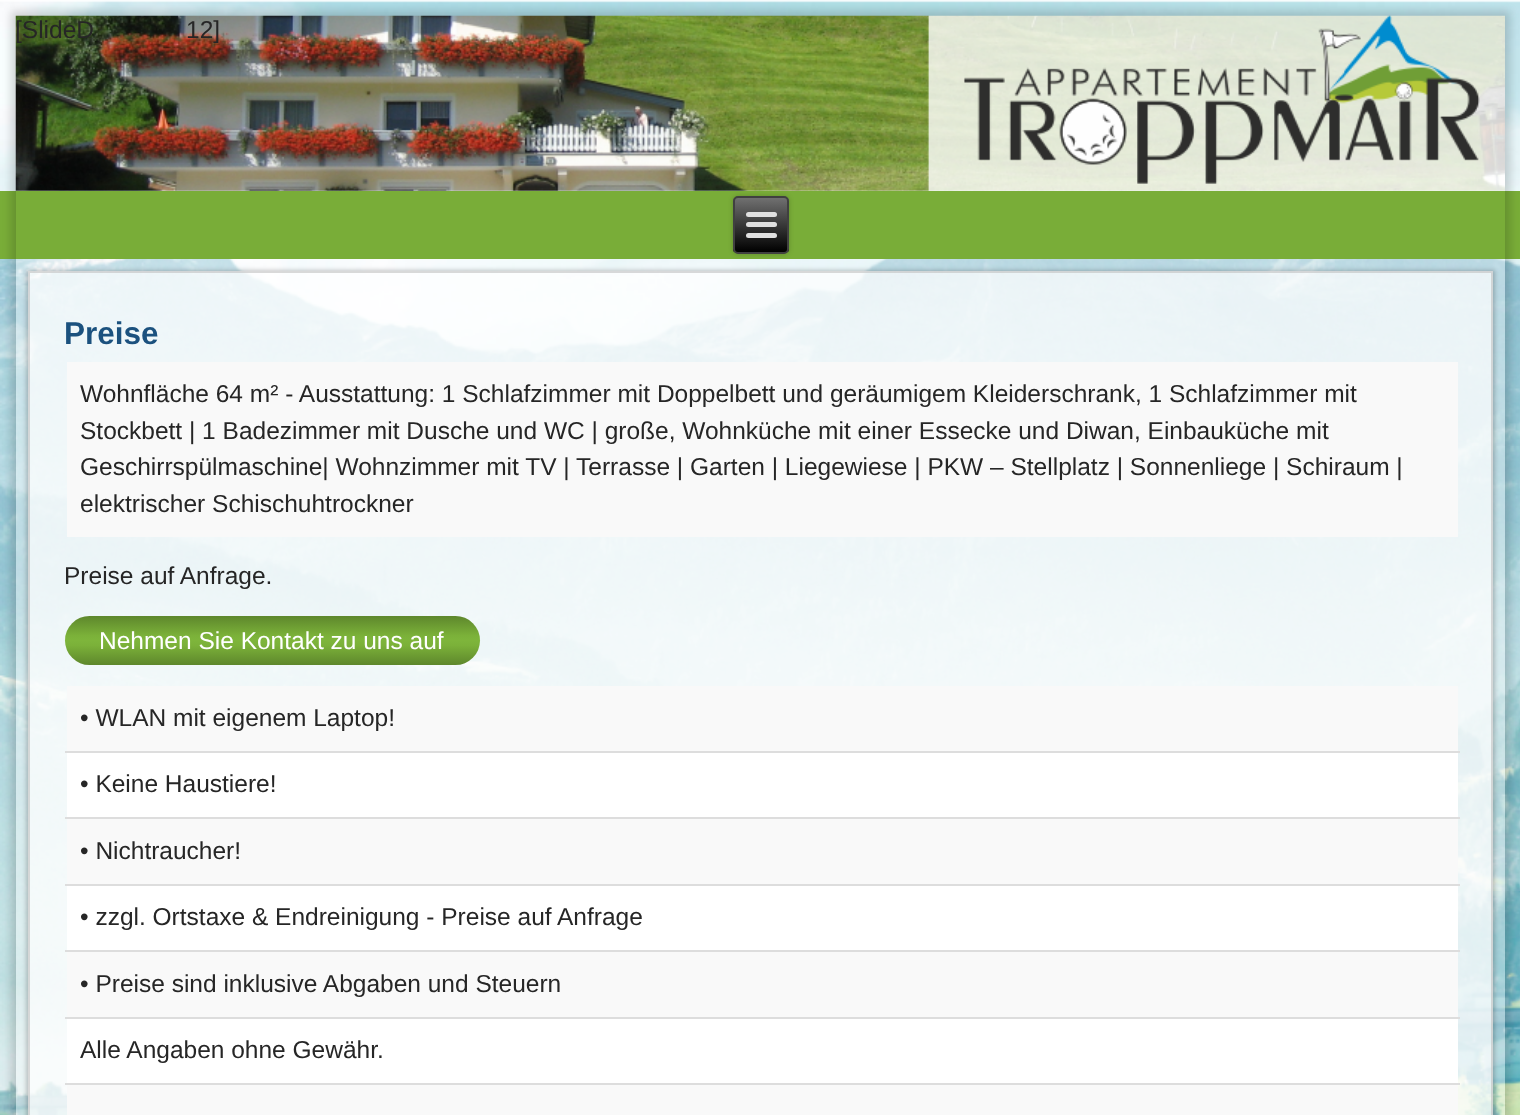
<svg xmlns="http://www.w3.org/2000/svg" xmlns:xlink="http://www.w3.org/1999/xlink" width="1520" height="1115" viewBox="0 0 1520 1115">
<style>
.cls-1{font:24.5px Liberation Sans;fill:#262626}
.cls-2{font:bold 31.5px Liberation Sans;fill:#1b517e}
.cls-3{font:24.5px Liberation Sans;fill:#ffffff}
</style>
<defs>
<clipPath id="clip1"><path d="M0 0H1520V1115H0ZM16 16H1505V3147H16Z" clip-rule="evenodd"/></clipPath>
<clipPath id="clip2"><rect x="733" y="196" width="56" height="58" rx="5"/></clipPath>
<linearGradient id="g1" gradientUnits="userSpaceOnUse" x1="761" y1="198" x2="761" y2="252"><stop offset="0" stop-color="#707070"/><stop offset="1" stop-color="#000000"/></linearGradient>
<clipPath id="clip3"><path d="M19 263H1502V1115H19ZM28 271H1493V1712H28Z" clip-rule="evenodd"/></clipPath>
<linearGradient id="g2" gradientUnits="userSpaceOnUse" x1="272" y1="616" x2="272" y2="665"><stop offset="0" stop-color="#5e872c"/><stop offset="0.4" stop-color="#7bb139"/><stop offset="0.5" stop-color="#7eb53b"/><stop offset="0.6" stop-color="#7bb139"/><stop offset="1" stop-color="#5e872c"/></linearGradient>
</defs>
<rect width="100%" height="100%" fill="#ffffff"/>
<image xlink:href="image0.png" x="0" y="0" width="1520" height="1115"/>
<rect fill="#79ad38" x="0" y="191" width="1520" height="68"/>
<g clip-path="url(#clip1)">
<rect fill="#000000" fill-opacity="0.16" filter="blur(4.5px)" x="11" y="11" width="1499" height="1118"/>
</g>
<image xlink:href="image1.png" x="15" y="15" width="1490" height="176"/>
<rect fill="#000000" fill-opacity="0.2" filter="blur(2.5px)" x="733" y="196" width="56" height="58" rx="5"/>
<g clip-path="url(#clip2)">
<rect fill="url(#g1)" x="733" y="198" width="56" height="54"/>
</g>
<rect fill="none" stroke="#404040" stroke-width="2" x="734" y="197" width="54" height="56" rx="4"/>
<rect fill="#e0e0e0" x="746" y="212" width="31" height="5" rx="2.5"/>
<rect fill="#e0e0e0" x="746" y="222" width="31" height="5" rx="2.5"/>
<rect fill="#e0e0e0" x="746" y="233" width="31" height="5" rx="2.5"/>
<g clip-path="url(#clip3)">
<rect fill="#000000" fill-opacity="0.21" filter="blur(2px)" x="26" y="270" width="1469" height="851"/>
</g>
<rect fill="#ffffff" fill-opacity="0.7" x="28" y="271" width="1465" height="844"/>
<rect fill="none" stroke="#bfbfbf" stroke-opacity="0.6" stroke-width="2" x="29" y="272" width="1463" height="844"/>
<rect fill="#f9f9f9" x="67" y="362" width="1391" height="175"/>
<rect fill="url(#g2)" x="65" y="616" width="415" height="49" rx="24.5"/>
<rect fill="#f9f9f9" x="67" y="686" width="1391" height="65"/>
<rect fill="#ffffff" x="67" y="753" width="1391" height="64"/>
<rect fill="#dddddd" x="65" y="751" width="1395" height="2"/>
<rect fill="#f9f9f9" x="67" y="819" width="1391" height="65"/>
<rect fill="#dddddd" x="65" y="817" width="1395" height="2"/>
<rect fill="#ffffff" x="67" y="886" width="1391" height="64"/>
<rect fill="#dddddd" x="65" y="884" width="1395" height="2"/>
<rect fill="#f9f9f9" x="67" y="952" width="1391" height="65"/>
<rect fill="#dddddd" x="65" y="950" width="1395" height="2"/>
<rect fill="#ffffff" x="67" y="1019" width="1391" height="64"/>
<rect fill="#dddddd" x="65" y="1017" width="1395" height="2"/>
<rect fill="#f9f9f9" x="67" y="1085" width="1391" height="30"/>
<rect fill="#dddddd" x="65" y="1083" width="1395" height="2"/>
<text class="cls-1" x="15" y="38">[SlideD</text>
<text class="cls-1" x="186" y="38">12]</text>
<text class="cls-2" x="64" y="344">Preise</text>
<text class="cls-1"><tspan x="80" y="402">Wohnfläche 64 m² - Ausstattung: 1 Schlafzimmer mit Doppelbett und geräumigem Kleiderschrank, 1 Schlafzimmer mit</tspan><tspan x="80" y="439">Stockbett | 1 Badezimmer mit Dusche und WC | große, Wohnküche mit einer Essecke und Diwan, Einbauküche mit</tspan><tspan x="80" y="475">Geschirrspülmaschine| Wohnzimmer mit TV | Terrasse | Garten | Liegewiese | PKW – Stellplatz | Sonnenliege | Schiraum |</tspan><tspan x="80" y="512">elektrischer Schischuhtrockner</tspan></text>
<text class="cls-1" x="64" y="584">Preise auf Anfrage.</text>
<text class="cls-3" x="99" y="649">Nehmen Sie Kontakt zu uns auf</text>
<text class="cls-1" x="80" y="726">• WLAN mit eigenem Laptop!</text>
<text class="cls-1" x="80" y="792">• Keine Haustiere!</text>
<text class="cls-1" x="80" y="859">• Nichtraucher!</text>
<text class="cls-1" x="80" y="925">• zzgl. Ortstaxe &amp; Endreinigung - Preise auf Anfrage</text>
<text class="cls-1" x="80" y="992">• Preise sind inklusive Abgaben und Steuern</text>
<text class="cls-1" x="80" y="1058">Alle Angaben ohne Gewähr.</text>
</svg>
